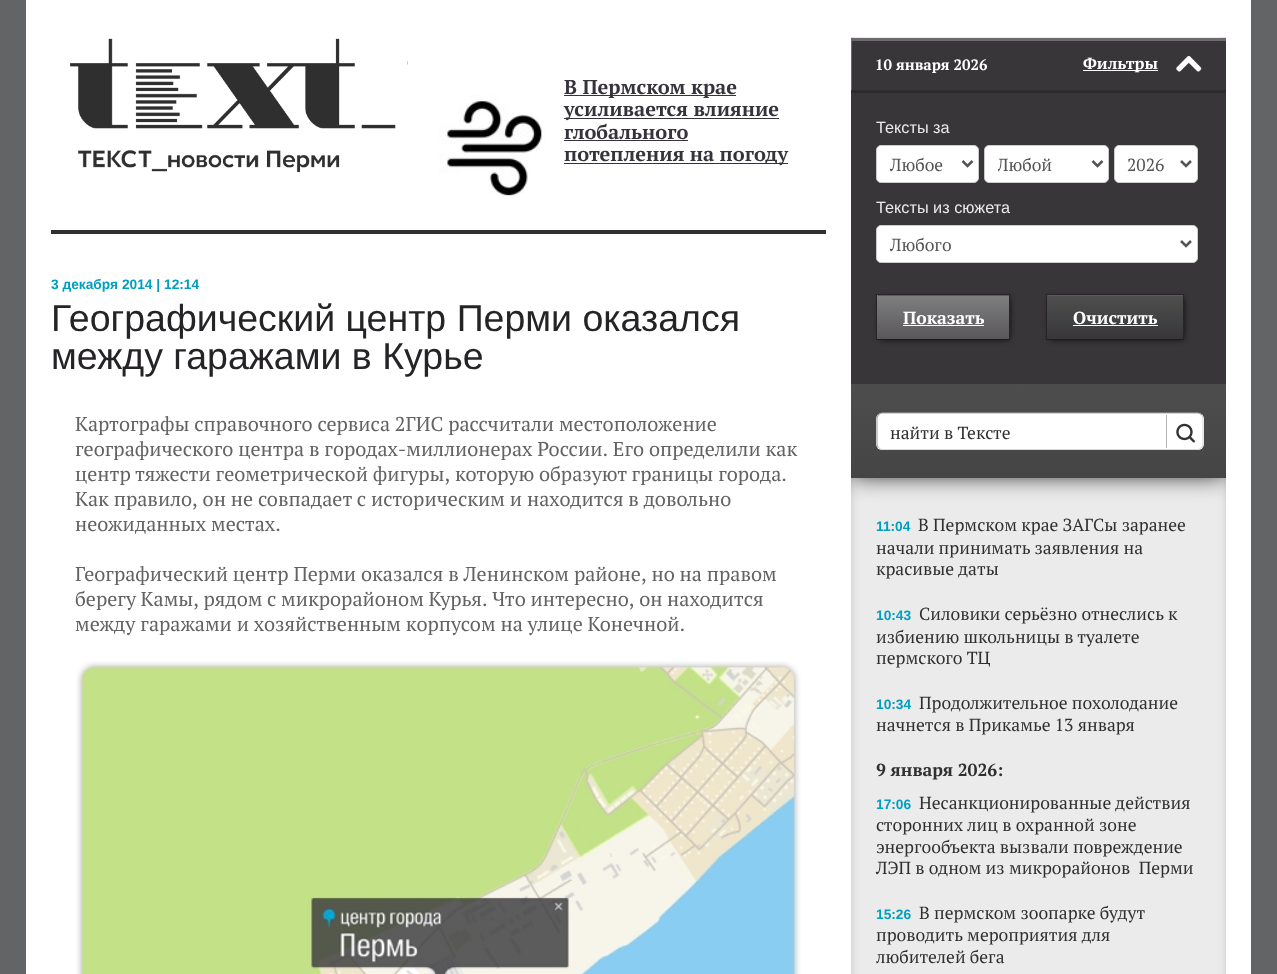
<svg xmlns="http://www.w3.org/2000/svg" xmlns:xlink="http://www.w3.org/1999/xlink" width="1277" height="974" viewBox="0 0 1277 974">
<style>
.cls-1{font:bold 20px PT Serif;fill:#37333d}
.cls-2{font:bold 13.75px Liberation Sans;fill:#009fc0}
.cls-3{font:37.5px Liberation Sans;fill:#252326}
.cls-4{font:20px PT Serif;fill:#636363}
.cls-5{font:bold 15px PT Serif;fill:#ffffff}
.cls-6{font:bold 16.25px PT Serif;fill:#ffffff}
.cls-7{font:16.25px Liberation Sans;fill:#ebebeb}
.cls-8{font:17.5px PT Serif;fill:#555555}
.cls-9{font:bold 17.5px PT Serif;fill:#ffffff}
.cls-10{font:17.5px PT Serif;fill:#303030}
.cls-11{font:bold 17.5px PT Serif;fill:#303030}
</style>
<defs>
<clipPath id="clip1"><rect x="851" y="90" width="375" height="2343"/></clipPath>
<linearGradient id="g1" gradientUnits="userSpaceOnUse" x1="943" y1="295" x2="943" y2="339"><stop offset="0" stop-color="#7f7f7f"/><stop offset="1" stop-color="#5a575b"/></linearGradient>
<linearGradient id="g2" gradientUnits="userSpaceOnUse" x1="1115" y1="295" x2="1115" y2="339"><stop offset="0" stop-color="#4f4f4f"/><stop offset="1" stop-color="#383639"/></linearGradient>
<linearGradient id="g3" gradientUnits="userSpaceOnUse" x1="1039" y1="384" x2="1039" y2="478"><stop offset="0" stop-color="#4d4d4d"/><stop offset="1" stop-color="#454545"/></linearGradient>
<clipPath id="clip2"><rect x="998" y="151" width="82" height="27"/></clipPath>
</defs>
<rect width="100%" height="100%" fill="#636466"/>
<rect fill="#ffffff" x="26" y="0" width="1225" height="974"/>
<rect fill="#303030" x="51" y="230" width="775" height="4"/>
<image xlink:href="image0.png" x="407" y="37" width="1" height="129"/>
<image xlink:href="image1.png" x="69" y="37" width="339" height="136"/>
<image xlink:href="image2.png" x="439" y="95" width="106" height="104"/>
<rect fill="#37333d" x="564" y="95" width="172" height="1"/>
<rect fill="#37333d" x="564" y="118" width="215" height="1"/>
<rect fill="#37333d" x="564" y="140" width="124" height="1"/>
<rect fill="#37333d" x="564" y="163" width="224" height="1"/>
<image xlink:href="image3.png" x="76" y="661" width="725" height="313"/>
<image xlink:href="image4.png" x="851" y="37" width="375" height="937"/>
<g clip-path="url(#clip1)">
<rect fill="#000000" filter="blur(12.5px)" x="851" y="380" width="375" height="94"/>
</g>
<rect fill="#383639" x="851" y="90" width="375" height="294"/>
<rect fill="#2c2c2c" filter="blur(0.5px)" x="851" y="40" width="375" height="53"/>
<rect fill="#383639" x="852" y="41" width="374" height="49"/>
<rect fill="#6c6a6c" x="851" y="38" width="375" height="3"/>
<rect fill="#6c6a6c" x="851" y="38" width="1" height="52"/>
<rect fill="#ffffff" x="1083" y="70" width="75" height="1"/>
<image xlink:href="image5.png" x="1176" y="56" width="26" height="16"/>
<rect fill="#ffffff" stroke="#cccccc" x="876.5" y="145.5" width="102" height="37" rx="4.5"/>
<path fill="none" stroke="#555555" stroke-width="2.5" d="M962.5 161L967.5 166L972.5 161"/>
<rect fill="#ffffff" stroke="#cccccc" x="984.5" y="145.5" width="124" height="37" rx="4.5"/>
<path fill="none" stroke="#555555" stroke-width="2.5" d="M1092.5 161L1097.5 166L1102.5 161"/>
<rect fill="#ffffff" stroke="#cccccc" x="1114.5" y="145.5" width="83" height="37" rx="4.5"/>
<path fill="none" stroke="#555555" stroke-width="2.5" d="M1181 161L1186 166L1191 161"/>
<rect fill="#ffffff" stroke="#cccccc" x="876.5" y="225.5" width="321" height="37" rx="4.5"/>
<path fill="none" stroke="#555555" stroke-width="2.5" d="M1181 241L1186 246L1191 241"/>
<rect fill="#000000" filter="blur(3px)" x="880" y="298" width="129" height="41"/>
<rect fill="url(#g1)" x="877" y="295" width="132" height="44"/>
<rect fill="#5b5b5b" x="878" y="295" width="131" height="1"/>
<rect fill="#282628" x="876" y="294" width="134" height="1"/>
<rect fill="#262526" x="1009" y="294" width="1" height="46"/>
<rect fill="#1e1d1e" x="876" y="339" width="134" height="1"/>
<rect fill="#262526" x="876" y="294" width="1" height="46"/>
<rect fill="#ffffff" x="903" y="325" width="81" height="1"/>
<rect fill="#000000" filter="blur(3px)" x="1050" y="298" width="133" height="41"/>
<rect fill="url(#g2)" x="1047" y="295" width="136" height="44"/>
<rect fill="#5b5b5b" x="1048" y="295" width="135" height="1"/>
<rect fill="#282628" x="1046" y="294" width="138" height="1"/>
<rect fill="#262526" x="1183" y="294" width="1" height="46"/>
<rect fill="#1e1d1e" x="1046" y="339" width="138" height="1"/>
<rect fill="#262526" x="1046" y="294" width="1" height="46"/>
<rect fill="#ffffff" x="1073" y="325" width="85" height="1"/>
<rect fill="url(#g3)" x="851" y="384" width="375" height="94"/>
<rect fill="#ffffff" x="876" y="413" width="328" height="37" rx="6"/>
<path fill="none" stroke="#dbd9db" stroke-width="1.2" d="M1201.5 415C1202.5 416 1203 417.5 1203 419V444C1203 445 1202.5 446.5 1201.5 447.5C1200.5 449 1199 449.5 1197.5 449.5H882.5C881 449.5 879.5 449 878.5 447.5"/>
<path fill="none" stroke="#ada8ae" stroke-width="1.2" d="M878.5 447.5C877.5 446.5 877 445 877 444V419C877 417.5 877.5 416 878.5 415C879.5 413.5 881 413 882.5 413H1197.5C1199 413 1200.5 413.5 1201.5 415"/>
<rect fill="#b3b3b3" x="1166" y="415" width="1" height="33"/>
<image xlink:href="image6.png" x="1176" y="423" width="19" height="20"/>
<text class="cls-1"><tspan x="564" y="94">В Пермском крае</tspan><tspan x="564" y="116">усиливается влияние</tspan><tspan x="564" y="139">глобального</tspan><tspan x="564" y="161">потепления на погоду</tspan></text>
<text class="cls-2" x="51" y="289">3 декабря 2014 | 12:14</text>
<text class="cls-3"><tspan x="51" y="331">Географический центр Перми оказался</tspan><tspan x="51" y="369">между гаражами в Курье</tspan></text>
<text class="cls-4"><tspan x="75" y="431">Картографы справочного сервиса 2ГИС рассчитали местоположение</tspan><tspan x="75" y="456">географического центра в городах-миллионерах России. Его определили как</tspan><tspan x="75" y="481">центр тяжести геометрической фигуры, которую образуют границы города.</tspan><tspan x="75" y="506">Как правило, он не совпадает с историческим и находится в довольно</tspan><tspan x="75" y="531">неожиданных местах.</tspan></text>
<text class="cls-4"><tspan x="75" y="581">Географический центр Перми оказался в Ленинском районе, но на правом</tspan><tspan x="75" y="606" word-spacing="-0.25">берегу Камы, рядом с микрорайоном Курья. Что интересно, он находится</tspan><tspan x="75" y="631">между гаражами и хозяйственным корпусом на улице Конечной.</tspan></text>
<text class="cls-5" x="875" y="70">10 января 2026</text>
<text class="cls-6" x="1083" y="69">Фильтры</text>
<text class="cls-7" x="876" y="133">Тексты за</text>
<text class="cls-8" x="890" y="171">Любое</text>
<g clip-path="url(#clip2)">
<text class="cls-8" x="997" y="171">Любой</text>
</g>
<text class="cls-8" x="1127" y="171">2026</text>
<text class="cls-7" x="876" y="213">Тексты из сюжета</text>
<text class="cls-8" x="890" y="251">Любого</text>
<text class="cls-9" x="903" y="324">Показать</text>
<text class="cls-9" x="1073" y="324">Очистить</text>
<text class="cls-10" x="890" y="439">найти в Тексте</text>
<text class="cls-2" x="876" y="531">11:04</text>
<text class="cls-10" x="918" y="531">В Пермском крае ЗАГСы заранее</text>
<text class="cls-10"><tspan x="876" y="554">начали принимать заявления на</tspan><tspan x="876" y="575">красивые даты</tspan></text>
<text class="cls-2" x="876" y="620">10:43</text>
<text class="cls-10" x="919" y="620">Силовики серьёзно отнеслись к</text>
<text class="cls-10"><tspan x="876" y="643">избиению школьницы в туалете</tspan><tspan x="876" y="664">пермского ТЦ</tspan></text>
<text class="cls-2" x="876" y="709">10:34</text>
<text class="cls-10" x="919" y="709">Продолжительное похолодание</text>
<text class="cls-10" x="876" y="731">начнется в Прикамье 13 января</text>
<text class="cls-11" x="876" y="776">9 января 2026:</text>
<text class="cls-2" x="876" y="809">17:06</text>
<text class="cls-10" x="919" y="809">Несанкционированные действия</text>
<text class="cls-10" xml:space="preserve"><tspan x="876" y="831">сторонних лиц в охранной зоне</tspan><tspan x="876" y="853">энергообъекта вызвали повреждение</tspan><tspan x="876" y="874">ЛЭП в одном из микрорайонов  Перми</tspan></text>
<text class="cls-2" x="876" y="919">15:26</text>
<text class="cls-10" x="919" y="919">В пермском зоопарке будут</text>
<text class="cls-10"><tspan x="876" y="941">проводить мероприятия для</tspan><tspan x="876" y="963">любителей бега</tspan></text>
</svg>
